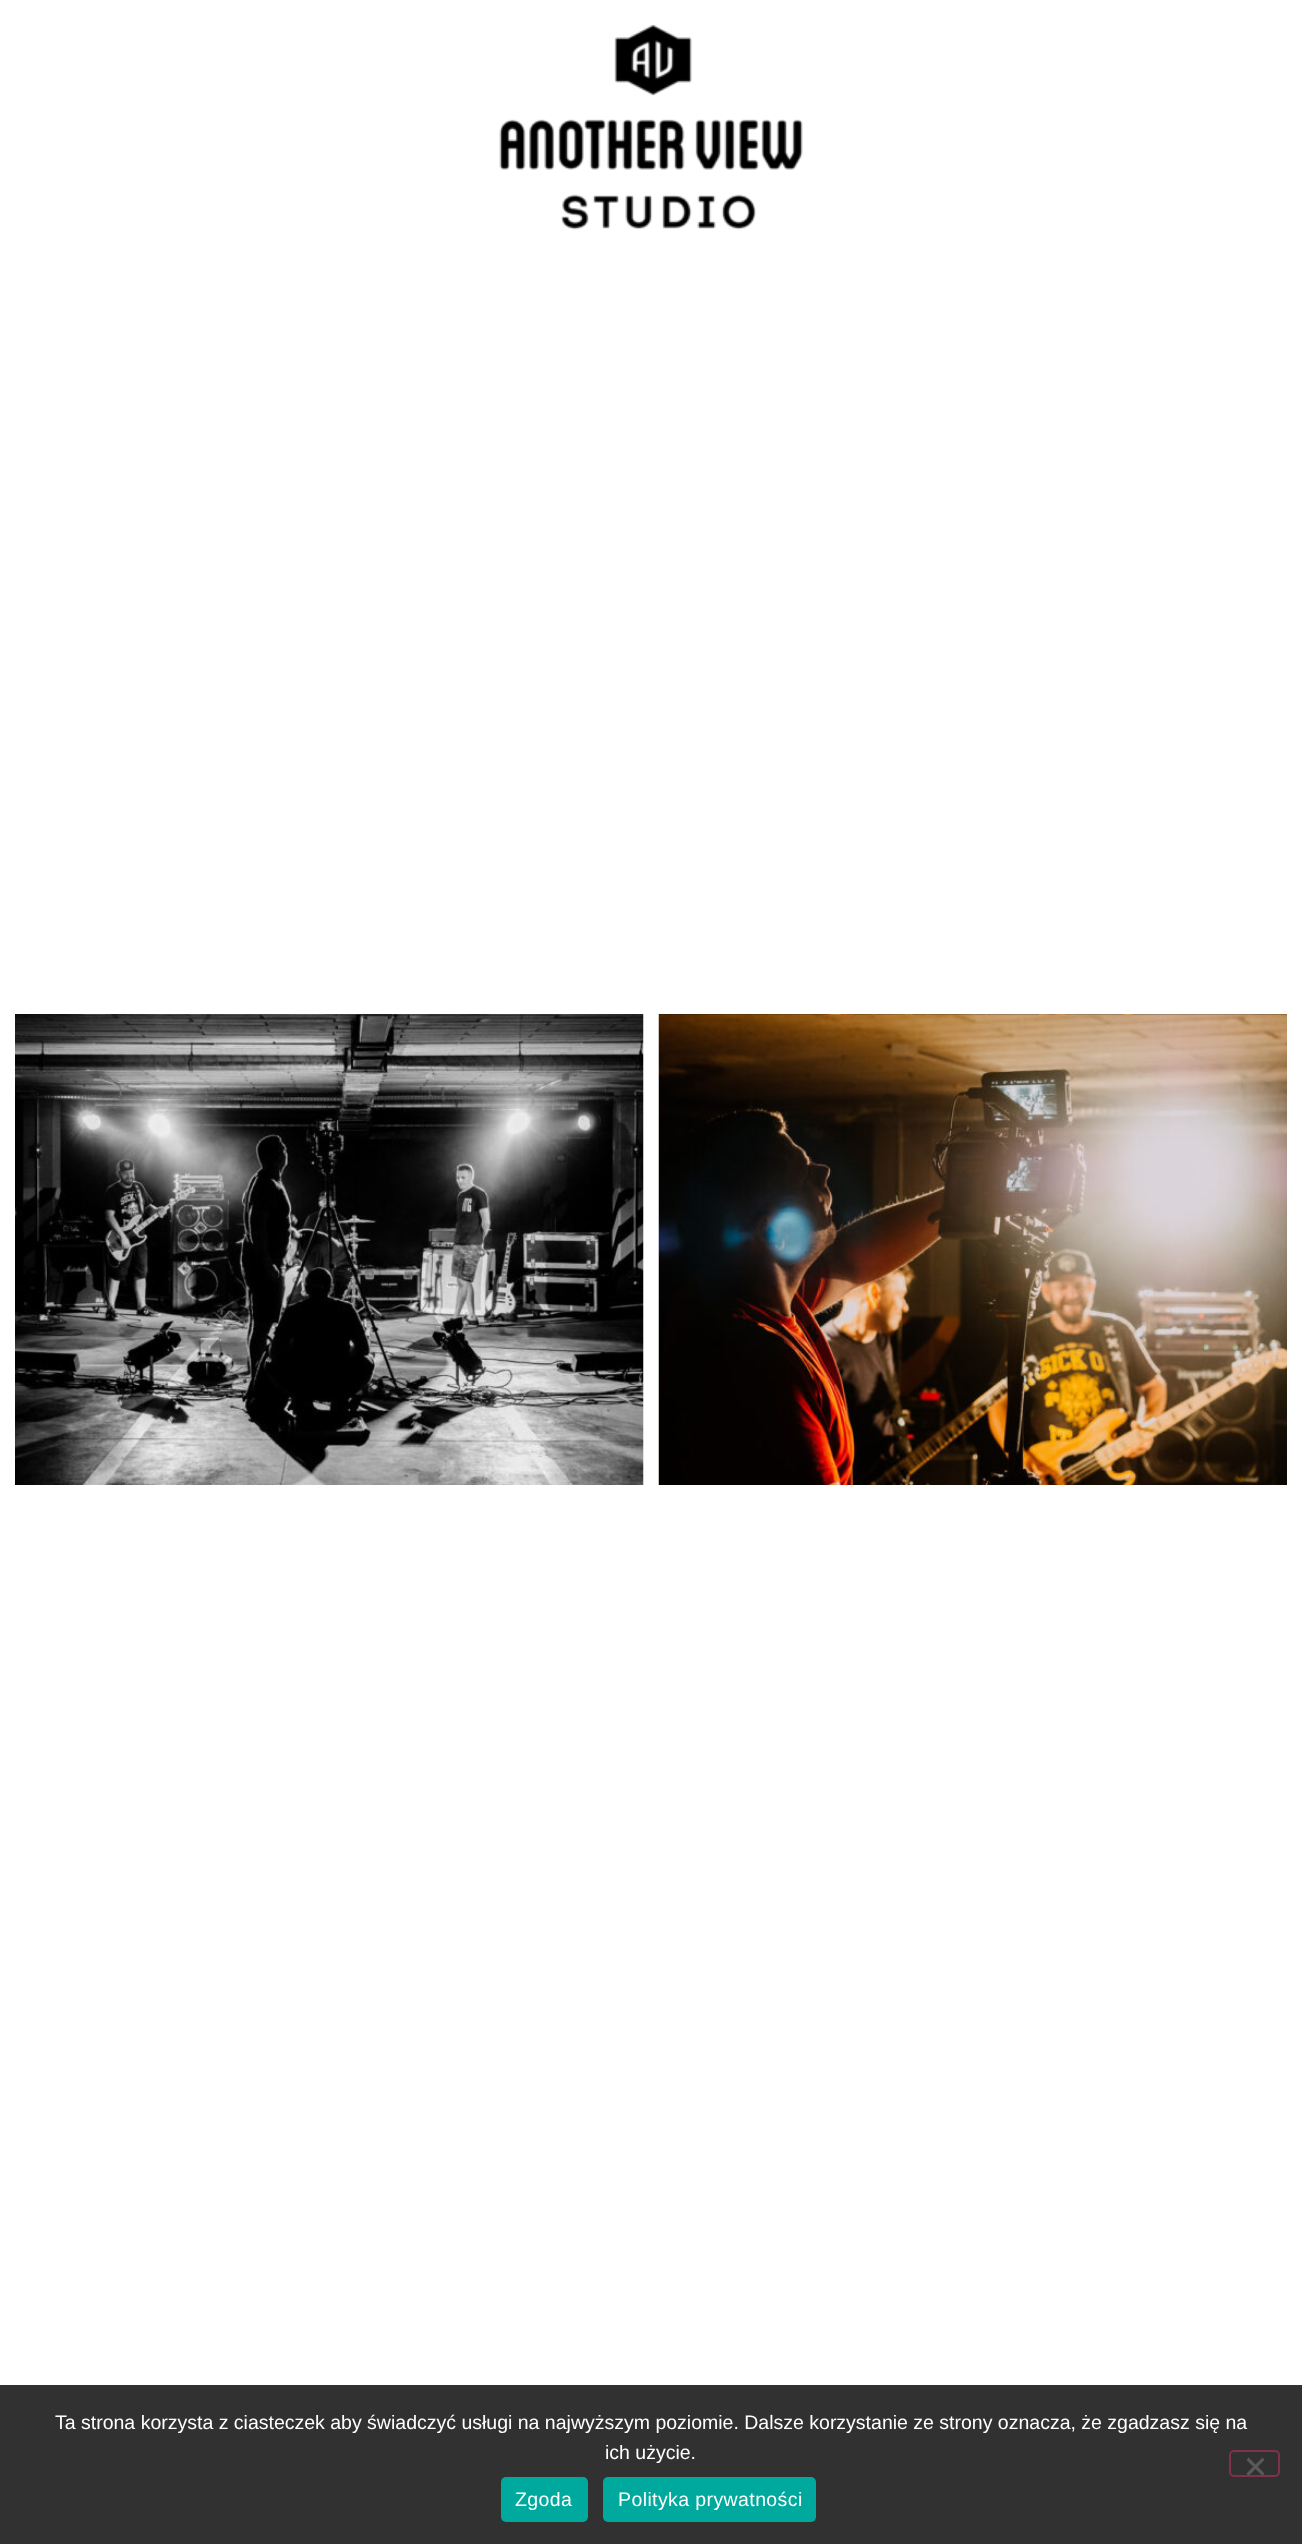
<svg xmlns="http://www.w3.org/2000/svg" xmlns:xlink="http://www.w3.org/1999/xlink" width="1302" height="2544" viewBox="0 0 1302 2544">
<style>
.cls-1{font:19.5px Liberation Sans;fill:#ffffff}
.cls-2{font:19.5px Liberation Sans;letter-spacing:0.4px;fill:#ffffff}
</style>
<rect width="100%" height="100%" fill="#ffffff"/>
<image xlink:href="image0.png" x="499" y="24" width="304" height="206"/>
<image xlink:href="image1.png" x="15" y="1014" width="629" height="471"/>
<image xlink:href="image2.png" x="658" y="1014" width="629" height="471"/>
<rect fill="#313131" x="0" y="2385" width="1302" height="159"/>
<rect fill="none" stroke="#7f324c" stroke-width="2" x="1230" y="2451" width="49" height="25" rx="4"/>
<path fill="#595959" d="M1262.5 2457.5L1264.5 2460L1248.5 2476L1246.5 2473.5Z"/>
<path fill="#595959" d="M1246.5 2460L1248.5 2457.5L1264.5 2473.5L1262.5 2476Z"/>
<rect fill="#00a99d" x="501" y="2477" width="87" height="45" rx="5"/>
<rect fill="#00a99d" x="603" y="2477" width="213" height="45" rx="5"/>
<text class="cls-1" x="55" y="2429">Ta strona korzysta z ciasteczek aby świadczyć usługi na najwyższym poziomie. Dalsze korzystanie ze strony oznacza, że zgadzasz się na</text>
<text class="cls-1" x="605" y="2459">ich użycie.</text>
<text class="cls-2" x="515" y="2506">Zgoda</text>
<text class="cls-2" x="618" y="2506">Polityka prywatności</text>
</svg>
